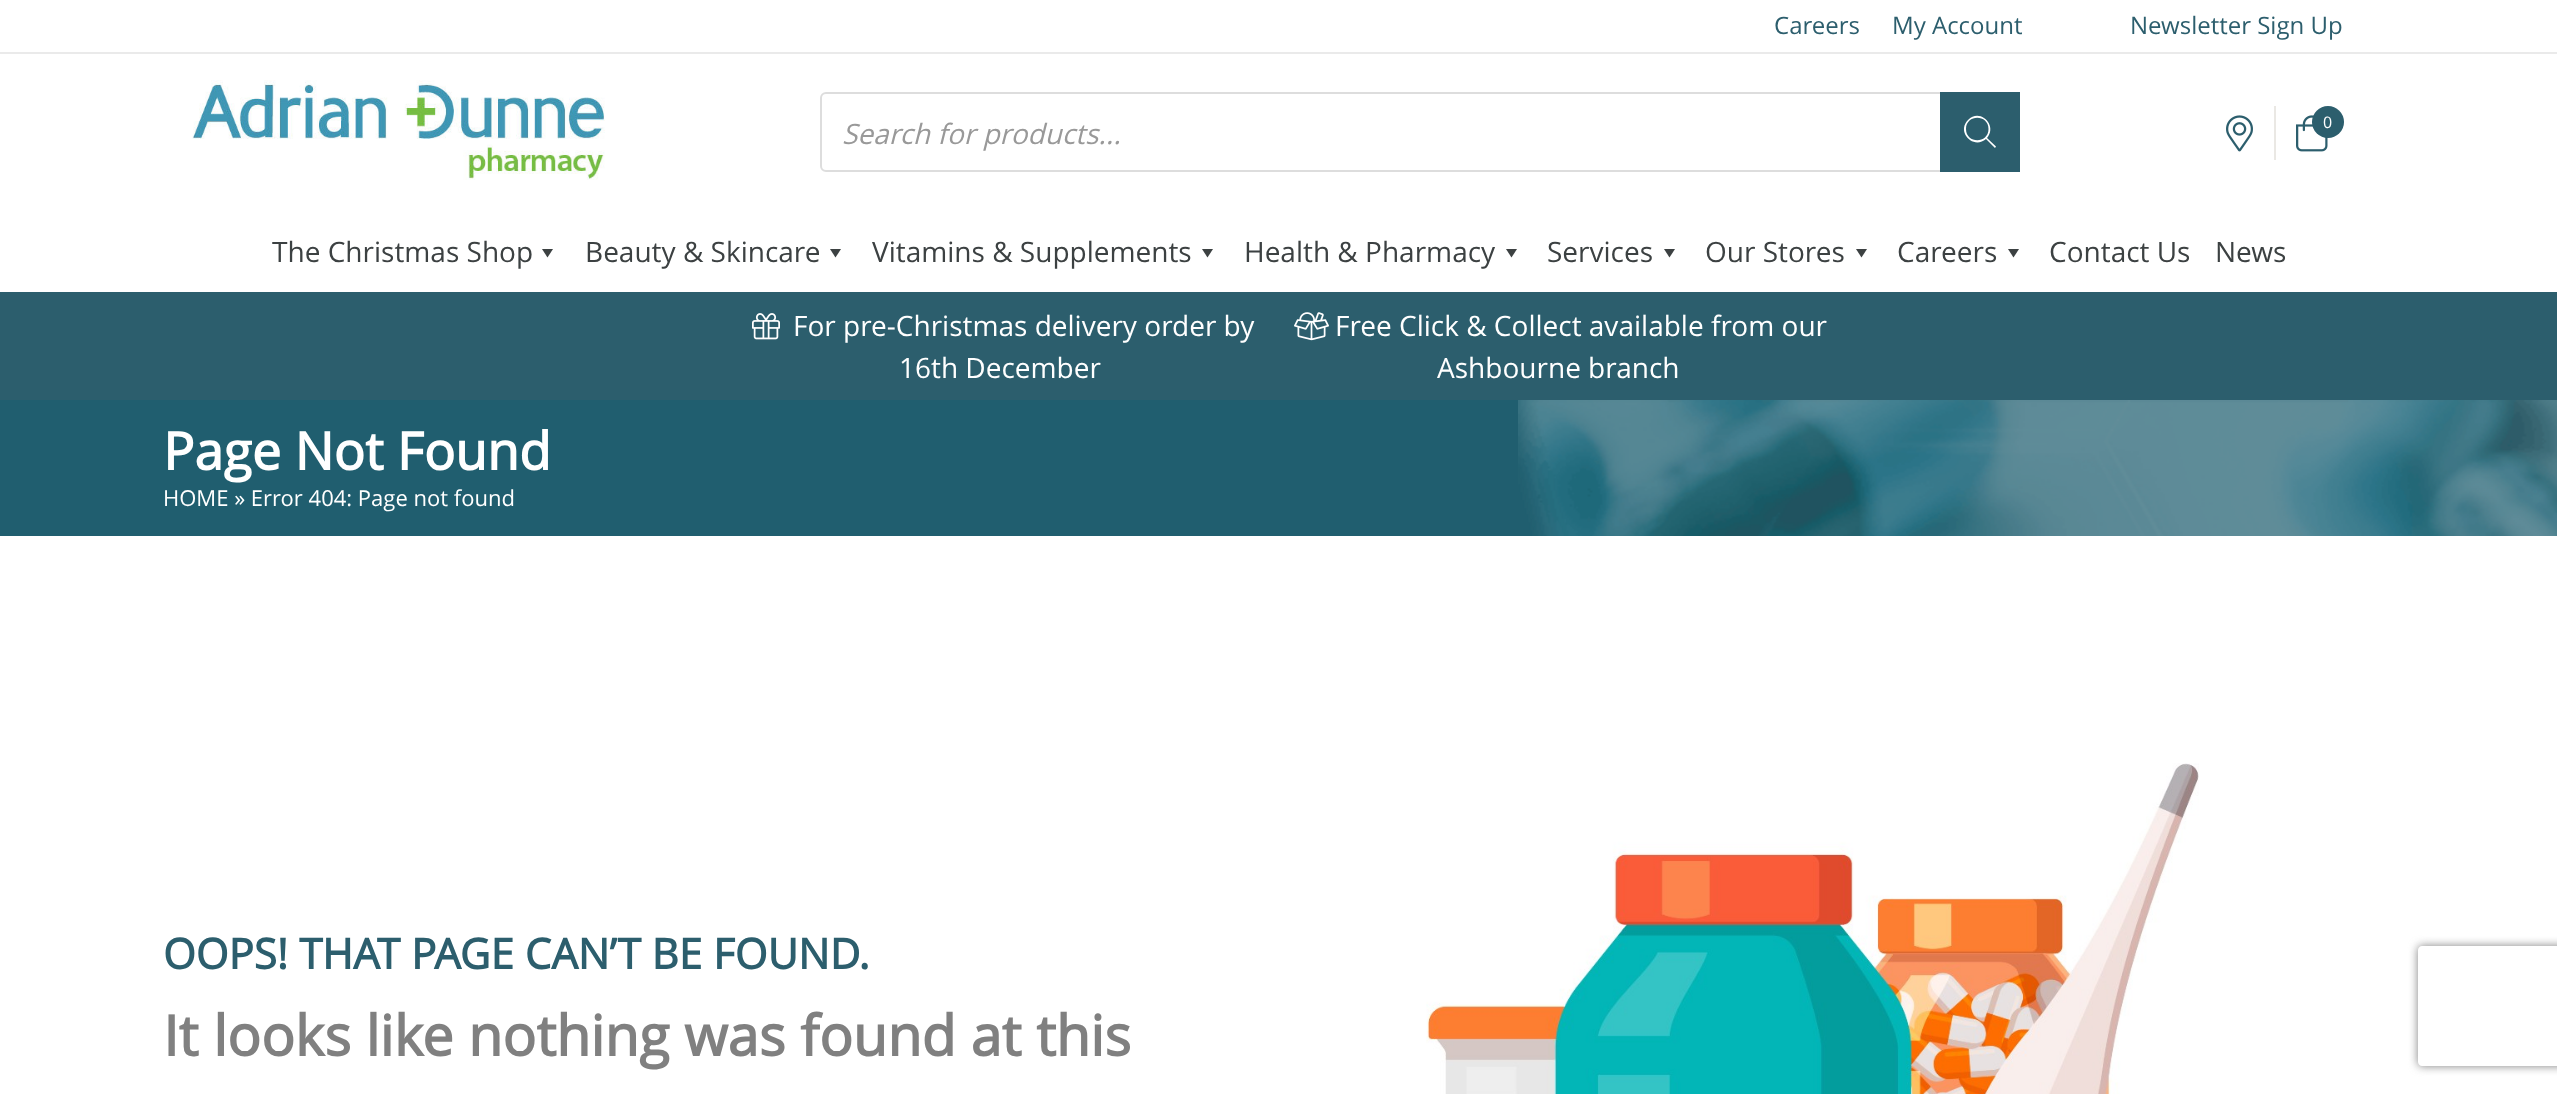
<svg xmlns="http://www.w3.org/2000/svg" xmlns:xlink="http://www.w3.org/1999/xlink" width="2557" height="1094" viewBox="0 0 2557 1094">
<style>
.cls-1{font:24px Open Sans;fill:#2c5e6d}
.cls-2{font:italic 28px Open Sans;fill:#999999}
.cls-3{font:16px Open Sans;fill:#ffffff}
.cls-4{font:28px Open Sans;fill:#3c4142}
.cls-5{font:28px Open Sans;fill:#ffffff}
.cls-6{font:bold 52px Open Sans;fill:#ffffff}
.cls-7{font:22px Open Sans;fill:#ffffff}
.cls-8{font:bold 42px Open Sans;fill:#2c5e6d}
.cls-9{font:bold 56px Open Sans;fill:#808080}
</style>
<defs>
<clipPath id="clip1"><path d="M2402 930H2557V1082H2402ZM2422 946H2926C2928 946 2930 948 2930 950V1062C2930 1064 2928 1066 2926 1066H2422C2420 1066 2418 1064 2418 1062V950C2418 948 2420 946 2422 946Z" clip-rule="evenodd"/></clipPath>
</defs>
<rect width="100%" height="100%" fill="#ffffff"/>
<rect fill="#eaeaea" x="0" y="52" width="2557" height="2"/>
<image xlink:href="image0.png" x="192" y="80" width="413" height="100"/>
<rect fill="none" stroke="#dddddd" stroke-width="2" x="821" y="93" width="1198" height="78" rx="5"/>
<rect fill="#2c5e6d" x="1940" y="92" width="80" height="80"/>
<path fill="#ffffff" d="M1996 146.5L1987 138C1998 125.5 1980 107.5 1968 120C1956 132 1973.5 150 1986 139L1995 148ZM1966 129C1966 114 1988.5 114 1988.5 129C1988.5 144 1966 144 1966 129Z"/>
<image xlink:href="image1.png" x="2226" y="115" width="27" height="37"/>
<rect fill="#eae8e4" x="2274" y="106" width="2" height="54"/>
<image xlink:href="image2.png" x="2296" y="115" width="32" height="37"/>
<circle fill="#2c5e6d" cx="2328" cy="122" r="16"/>
<path fill="#3c4142" d="M553 249L547.5 257.5L542 249Z"/>
<path fill="#3c4142" d="M841 249L835.5 257.5L830 249Z"/>
<path fill="#3c4142" d="M1213 249L1207.5 257.5L1202 249Z"/>
<path fill="#3c4142" d="M1517 249L1511.5 257.5L1506 249Z"/>
<path fill="#3c4142" d="M1675 249L1669.5 257.5L1664 249Z"/>
<path fill="#3c4142" d="M1867 249L1861.5 257.5L1856 249Z"/>
<path fill="#3c4142" d="M2019 249L2013.5 257.5L2008 249Z"/>
<rect fill="#2c5e6d" x="0" y="292" width="2557" height="108"/>
<image xlink:href="image3.png" x="752" y="313" width="28" height="27"/>
<image xlink:href="image4.png" x="1294" y="312" width="35" height="29"/>
<rect fill="#205e6f" x="0" y="400" width="2557" height="136"/>
<image xlink:href="image5.png" x="1518" y="400" width="1039" height="136"/>
<image xlink:href="image6.png" x="1426" y="763" width="773" height="331"/>
<g clip-path="url(#clip1)">
<rect fill="#808080" filter="blur(5px)" x="2418" y="946" width="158" height="120" rx="4"/>
</g>
<text class="cls-1" x="1774" y="34">Careers</text>
<text class="cls-1" x="1892" y="34">My Account</text>
<text class="cls-1" x="2130" y="34">Newsletter Sign Up</text>
<text class="cls-2" x="842" y="144">Search for products...</text>
<text class="cls-3" x="2323" y="128">0</text>
<text class="cls-4" x="272" y="262">The Christmas Shop</text>
<text class="cls-4" x="585" y="262">Beauty &amp; Skincare</text>
<text class="cls-4" x="872" y="262">Vitamins &amp; Supplements</text>
<text class="cls-4" x="1244" y="262">Health &amp; Pharmacy</text>
<text class="cls-4" x="1547" y="262">Services</text>
<text class="cls-4" x="1705" y="262">Our Stores</text>
<text class="cls-4" x="1897" y="262">Careers</text>
<text class="cls-4" x="2049" y="262">Contact Us</text>
<text class="cls-4" x="2215" y="262">News</text>
<text class="cls-5" x="793" y="336">For pre-Christmas delivery order by</text>
<text class="cls-5" x="899" y="378">16th December</text>
<text class="cls-5" x="1335" y="336">Free Click &amp; Collect available from our</text>
<text class="cls-5" x="1437" y="378">Ashbourne branch</text>
<text class="cls-6" x="163" y="470">Page Not Found</text>
<text class="cls-7" x="163" y="506">HOME » Error 404: Page not found</text>
<text class="cls-8" x="163" y="969">OOPS! THAT PAGE CAN’T BE FOUND.</text>
<text class="cls-9" x="163" y="1056">It looks like nothing was found at this</text>
</svg>
